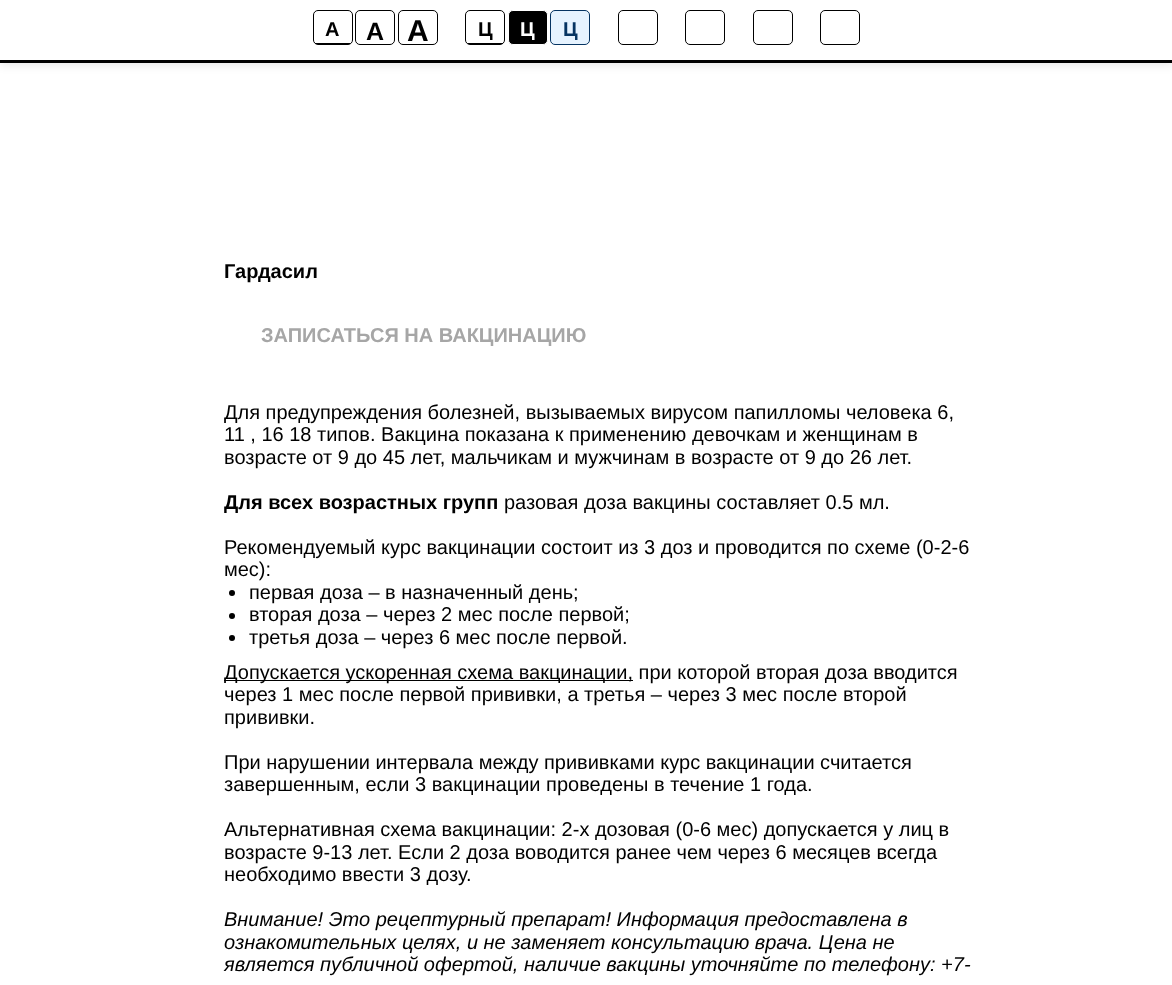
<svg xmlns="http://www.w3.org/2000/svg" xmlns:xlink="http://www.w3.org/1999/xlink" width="1172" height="985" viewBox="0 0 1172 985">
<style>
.cls-1{font:bold 20px Liberation Sans;fill:#000000}
.cls-2{font:bold 25px Liberation Sans;fill:#000000}
.cls-3{font:bold 30px Liberation Sans;fill:#000000}
.cls-4{font:bold 20px Liberation Sans;fill:#ffffff}
.cls-5{font:bold 20px Liberation Sans;fill:#063462}
.cls-6{font:bold 20px Liberation Sans;fill:#a6a6a6}
.cls-7{font:20px Liberation Sans;fill:#000000}
.cls-8{font:italic 20px Liberation Sans;fill:#000000}
</style>
<rect width="100%" height="100%" fill="#ffffff"/>
<rect fill="#000000" fill-opacity="0.1" filter="blur(5px)" x="0" y="3" width="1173" height="62"/>
<rect fill="#ffffff" x="0" y="0" width="1172" height="60"/>
<rect fill="#000000" x="0" y="60" width="1172" height="3"/>
<rect fill="none" stroke="#000000" x="313.5" y="10.5" width="39" height="34" rx="4.5"/>
<rect fill="#000000" x="315" y="43" width="35" height="1"/>
<rect fill="none" stroke="#000000" x="355.5" y="10.5" width="39" height="34" rx="4.5"/>
<rect fill="none" stroke="#000000" x="398.5" y="10.5" width="39" height="34" rx="4.5"/>
<rect fill="none" stroke="#000000" x="465.5" y="10.5" width="39" height="34" rx="4.5"/>
<rect fill="#000000" x="468" y="43" width="35" height="1"/>
<rect fill="#000000" stroke="#ffffff" x="508.5" y="10.5" width="39" height="34" rx="4.5"/>
<rect fill="#e6f3ff" stroke="#063462" x="550.5" y="10.5" width="39" height="34" rx="4.5"/>
<rect fill="none" stroke="#000000" x="618.5" y="10.5" width="39" height="34" rx="4.5"/>
<rect fill="none" stroke="#000000" x="685.5" y="10.5" width="39" height="34" rx="4.5"/>
<rect fill="none" stroke="#000000" x="753.5" y="10.5" width="39" height="34" rx="4.5"/>
<rect fill="none" stroke="#000000" x="820.5" y="10.5" width="39" height="34" rx="4.5"/>
<circle fill="#000000" cx="232" cy="593" r="3"/>
<circle fill="#000000" cx="232" cy="616" r="3"/>
<circle fill="#000000" cx="232" cy="638" r="3"/>
<rect fill="#000000" x="224" y="680" width="409" height="1"/>
<text class="cls-1" x="325" y="36">A</text>
<text class="cls-2" x="366" y="40">A</text>
<text class="cls-3" x="407" y="41">A</text>
<text class="cls-1" x="478" y="36">Ц</text>
<text class="cls-4" x="520" y="36">Ц</text>
<text class="cls-5" x="563" y="36">Ц</text>
<text class="cls-1" x="224" y="278">Гардасил</text>
<text class="cls-6" x="261" y="342">ЗАПИСАТЬСЯ НА ВАКЦИНАЦИЮ</text>
<text class="cls-7"><tspan x="224" y="419">Для предупреждения болезней, вызываемых вирусом папилломы человека 6,</tspan><tspan x="224" y="441">11 , 16 18 типов. Вакцина показана к применению девочкам и женщинам в</tspan><tspan x="224" y="464">возрасте от 9 до 45 лет, мальчикам и мужчинам в возрасте от 9 до 26 лет.</tspan></text>
<text class="cls-1" x="224" y="509">Для всех возрастных групп</text>
<text class="cls-7" x="504" y="509">разовая доза вакцины составляет 0.5 мл.</text>
<text class="cls-7"><tspan x="224" y="554">Рекомендуемый курс вакцинации состоит из 3 доз и проводится по схеме (0-2-6</tspan><tspan x="224" y="576">мес):</tspan></text>
<text class="cls-7"><tspan x="249" y="599">первая доза – в назначенный день;</tspan><tspan x="249" y="621">вторая доза – через 2 мес после первой;</tspan><tspan x="249" y="644">третья доза – через 6 мес после первой.</tspan></text>
<text class="cls-7"><tspan x="224" y="679">Допускается ускоренная схема вакцинации, при которой вторая доза вводится</tspan><tspan x="224" y="701">через 1 мес после первой прививки, а третья – через 3 мес после второй</tspan><tspan x="224" y="724">прививки.</tspan></text>
<text class="cls-7"><tspan x="224" y="769">При нарушении интервала между прививками курс вакцинации считается</tspan><tspan x="224" y="791">завершенным, если 3 вакцинации проведены в течение 1 года.</tspan></text>
<text class="cls-7"><tspan x="224" y="836">Альтернативная схема вакцинации: 2-х дозовая (0-6 мес) допускается у лиц в</tspan><tspan x="224" y="859">возрасте 9-13 лет. Если 2 доза воводится ранее чем через 6 месяцев всегда</tspan><tspan x="224" y="881">необходимо ввести 3 дозу.</tspan></text>
<text class="cls-8"><tspan x="224" y="926">Внимание! Это рецептурный препарат! Информация предоставлена в</tspan><tspan x="224" y="949">ознакомительных целях, и не заменяет консультацию врача. Цена не</tspan><tspan x="224" y="971">является публичной офертой, наличие вакцины уточняйте по телефону: +7-</tspan></text>
</svg>
